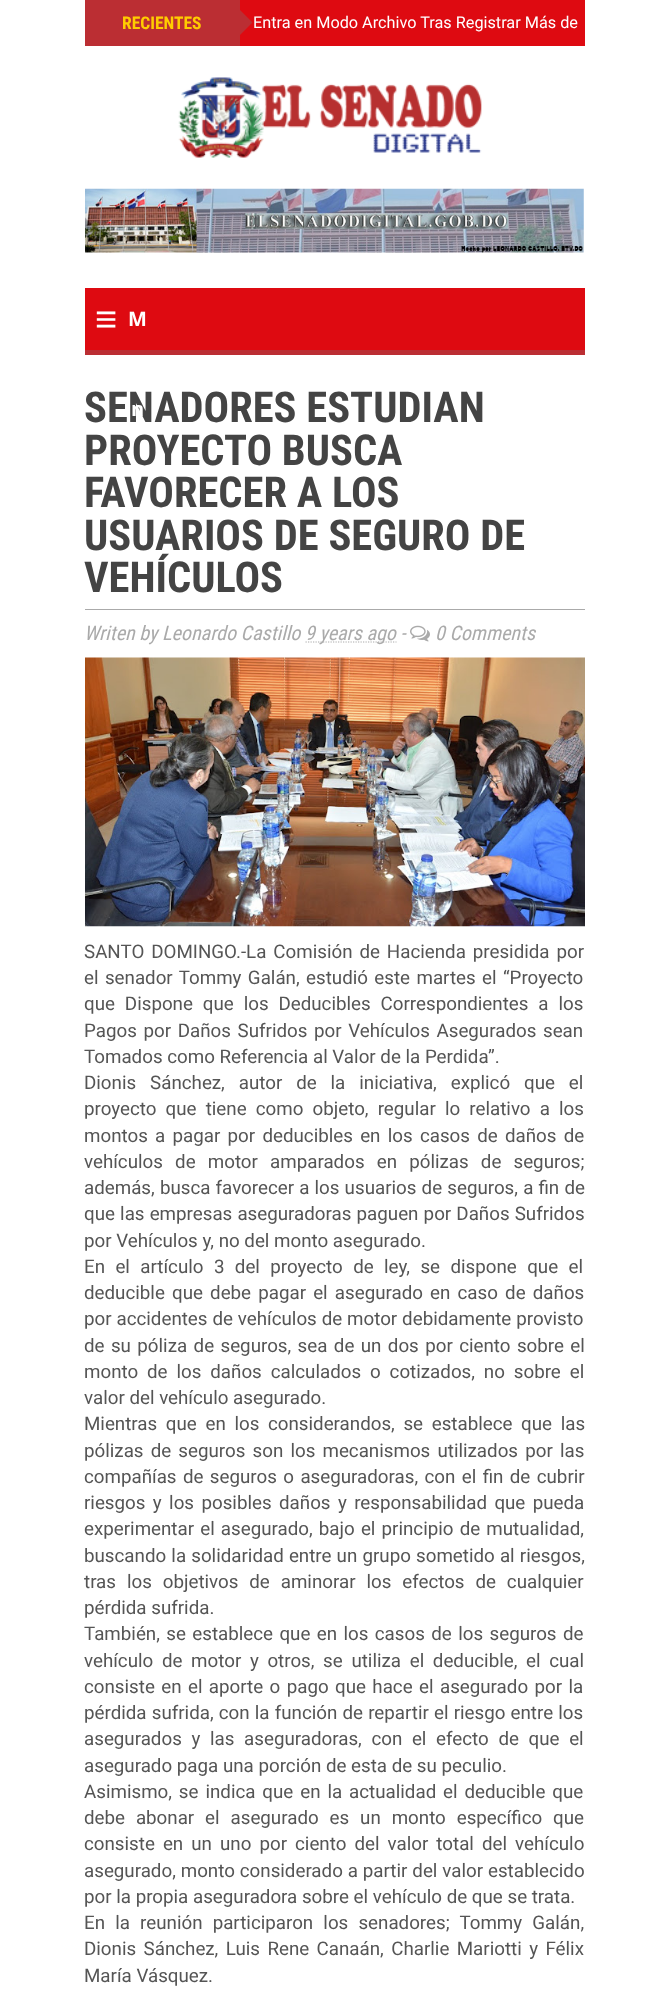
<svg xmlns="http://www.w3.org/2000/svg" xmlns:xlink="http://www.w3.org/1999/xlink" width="668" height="2002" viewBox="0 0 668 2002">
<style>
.cls-1{font:bold 17.5px Roboto Condensed;fill:#ffcc00}
.cls-2{font:16.25px Roboto;fill:#ffffff}
.cls-3{font:bold 38px Liberation Sans;fill:#ffffff}
.cls-4{font:bold 20px Open Sans;fill:#ffffff}
.cls-5{font:bold 42.5px Roboto Condensed;fill:#444444}
.cls-6{font:italic 20px Roboto Condensed;fill:#aaaaaa}
.cls-7{font:18.75px Roboto;fill:#555555}
</style>
<rect width="100%" height="100%" fill="#ffffff"/>
<rect fill="#de0a11" x="240" y="0" width="345" height="46"/>
<rect fill="#bb2e33" x="85" y="0" width="155" height="46"/>
<path fill="#bb2e33" d="M240 35V10L252.5 22.5Z"/>
<image xlink:href="image0.png" x="178" y="77" width="304" height="81"/>
<image xlink:href="image1.png" x="85" y="188" width="499" height="65"/>
<rect fill="#de0a11" x="85" y="288" width="500" height="62"/>
<rect fill="#bb2e33" x="85" y="350" width="500" height="5"/>
<rect fill="#aaaaaa" x="85" y="609" width="500" height="1"/>
<path fill="none" stroke="#aaaaaa" stroke-width="1.2" stroke-dasharray="1.25 1.25" d="M305.5 642H396.5"/>
<image xlink:href="image2.png" x="410" y="625" width="20" height="17"/>
<image xlink:href="image3.png" x="85" y="657" width="500" height="270"/>
<text class="cls-1" x="122" y="29">RECIENTES</text>
<text class="cls-2" x="253" y="28">Entra en Modo Archivo Tras Registrar Más de</text>
<text class="cls-3" x="95" y="332">≡</text>
<text class="cls-4" x="128" y="326">M</text>
<text class="cls-5" x="84" y="422">SENADORES ESTUDIAN</text>
<text class="cls-4" x="131" y="416">n</text>
<text class="cls-5"><tspan x="84" y="465">PROYECTO BUSCA</tspan><tspan x="84" y="507">FAVORECER A LOS</tspan><tspan x="84" y="550">USUARIOS DE SEGURO DE</tspan><tspan x="84" y="592">VEHÍCULOS</tspan></text>
<text class="cls-6" x="84" y="640">Writen by Leonardo Castillo</text>
<text class="cls-6" x="305" y="640">9 years ago -</text>
<text class="cls-6" x="435" y="640">0 Comments</text>
<text class="cls-7"><tspan x="84" y="958" word-spacing="2.25">SANTO DOMINGO.-La Comisión de Hacienda presidida por</tspan><tspan x="84" y="984" word-spacing="1.75">el senador Tommy Galán, estudió este martes el “Proyecto</tspan><tspan x="84" y="1010" word-spacing="5.25">que Dispone que los Deducibles Correspondientes a los</tspan><tspan x="84" y="1037" word-spacing="2">Pagos por Daños Sufridos por Vehículos Asegurados sean</tspan><tspan x="84" y="1063">Tomados como Referencia al Valor de la Perdida”.</tspan><tspan x="84" y="1089" word-spacing="9.25">Dionis Sánchez, autor de la iniciativa, explicó que el</tspan><tspan x="84" y="1115" word-spacing="4.5">proyecto que tiene como objeto, regular lo relativo a los</tspan><tspan x="84" y="1142" word-spacing="2.6">montos a pagar por deducibles en los casos de daños de</tspan><tspan x="84" y="1168" word-spacing="7.5">vehículos de motor amparados en pólizas de seguros;</tspan><tspan x="84" y="1194" word-spacing="0.5">además, busca favorecer a los usuarios de seguros, a fin de</tspan><tspan x="84" y="1220" word-spacing="0.5">que las empresas aseguradoras paguen por Daños Sufridos</tspan><tspan x="84" y="1247">por Vehículos y, no del monto asegurado.</tspan><tspan x="84" y="1273" word-spacing="5.75">En el artículo 3 del proyecto de ley, se dispone que el</tspan><tspan x="84" y="1299" word-spacing="2.5">deducible que debe pagar el asegurado en caso de daños</tspan><tspan x="84" y="1325" word-spacing="0.25">por accidentes de vehículos de motor debidamente provisto</tspan><tspan x="84" y="1352" word-spacing="1.75">de su póliza de seguros, sea de un dos por ciento sobre el</tspan><tspan x="84" y="1378" word-spacing="4.25">monto de los daños calculados o cotizados, no sobre el</tspan><tspan x="84" y="1404">valor del vehículo asegurado.</tspan><tspan x="84" y="1430" word-spacing="4">Mientras que en los considerandos, se establece que las</tspan><tspan x="84" y="1457" word-spacing="2.5">pólizas de seguros son los mecanismos utilizados por las</tspan><tspan x="84" y="1483" word-spacing="1.75">compañías de seguros o aseguradoras, con el fin de cubrir</tspan><tspan x="84" y="1509" word-spacing="2.75">riesgos y los posibles daños y responsabilidad que pueda</tspan><tspan x="84" y="1535" word-spacing="1.5">experimentar el asegurado, bajo el principio de mutualidad,</tspan><tspan x="84" y="1562" word-spacing="0.5">buscando la solidaridad entre un grupo sometido al riesgos,</tspan><tspan x="84" y="1588" word-spacing="6.25">tras los objetivos de aminorar los efectos de cualquier</tspan><tspan x="84" y="1614">pérdida sufrida.</tspan><tspan x="84" y="1640" word-spacing="1.75">También, se establece que en los casos de los seguros de</tspan><tspan x="84" y="1667" word-spacing="4">vehículo de motor y otros, se utiliza el deducible, el cual</tspan><tspan x="84" y="1693" word-spacing="1.75">consiste en el aporte o pago que hace el asegurado por la</tspan><tspan x="84" y="1719" word-spacing="0.5">pérdida sufrida, con la función de repartir el riesgo entre los</tspan><tspan x="84" y="1745" word-spacing="5">asegurados y las aseguradoras, con el efecto de que el</tspan><tspan x="84" y="1772">asegurado paga una porción de esta de su peculio.</tspan><tspan x="84" y="1798" word-spacing="2.25">Asimismo, se indica que en la actualidad el deducible que</tspan><tspan x="84" y="1824" word-spacing="6.25">debe abonar el asegurado es un monto específico que</tspan><tspan x="84" y="1850" word-spacing="3.4">consiste en un uno por ciento del valor total del vehículo</tspan><tspan x="84" y="1877" word-spacing="0.25">asegurado, monto considerado a partir del valor establecido</tspan><tspan x="84" y="1903">por la propia aseguradora sobre el vehículo de que se trata.</tspan><tspan x="84" y="1929" word-spacing="5.5">En la reunión participaron los senadores; Tommy Galán,</tspan><tspan x="84" y="1955" word-spacing="2.75">Dionis Sánchez, Luis Rene Canaán, Charlie Mariotti y Félix</tspan><tspan x="84" y="1982">María Vásquez.</tspan></text>
</svg>
